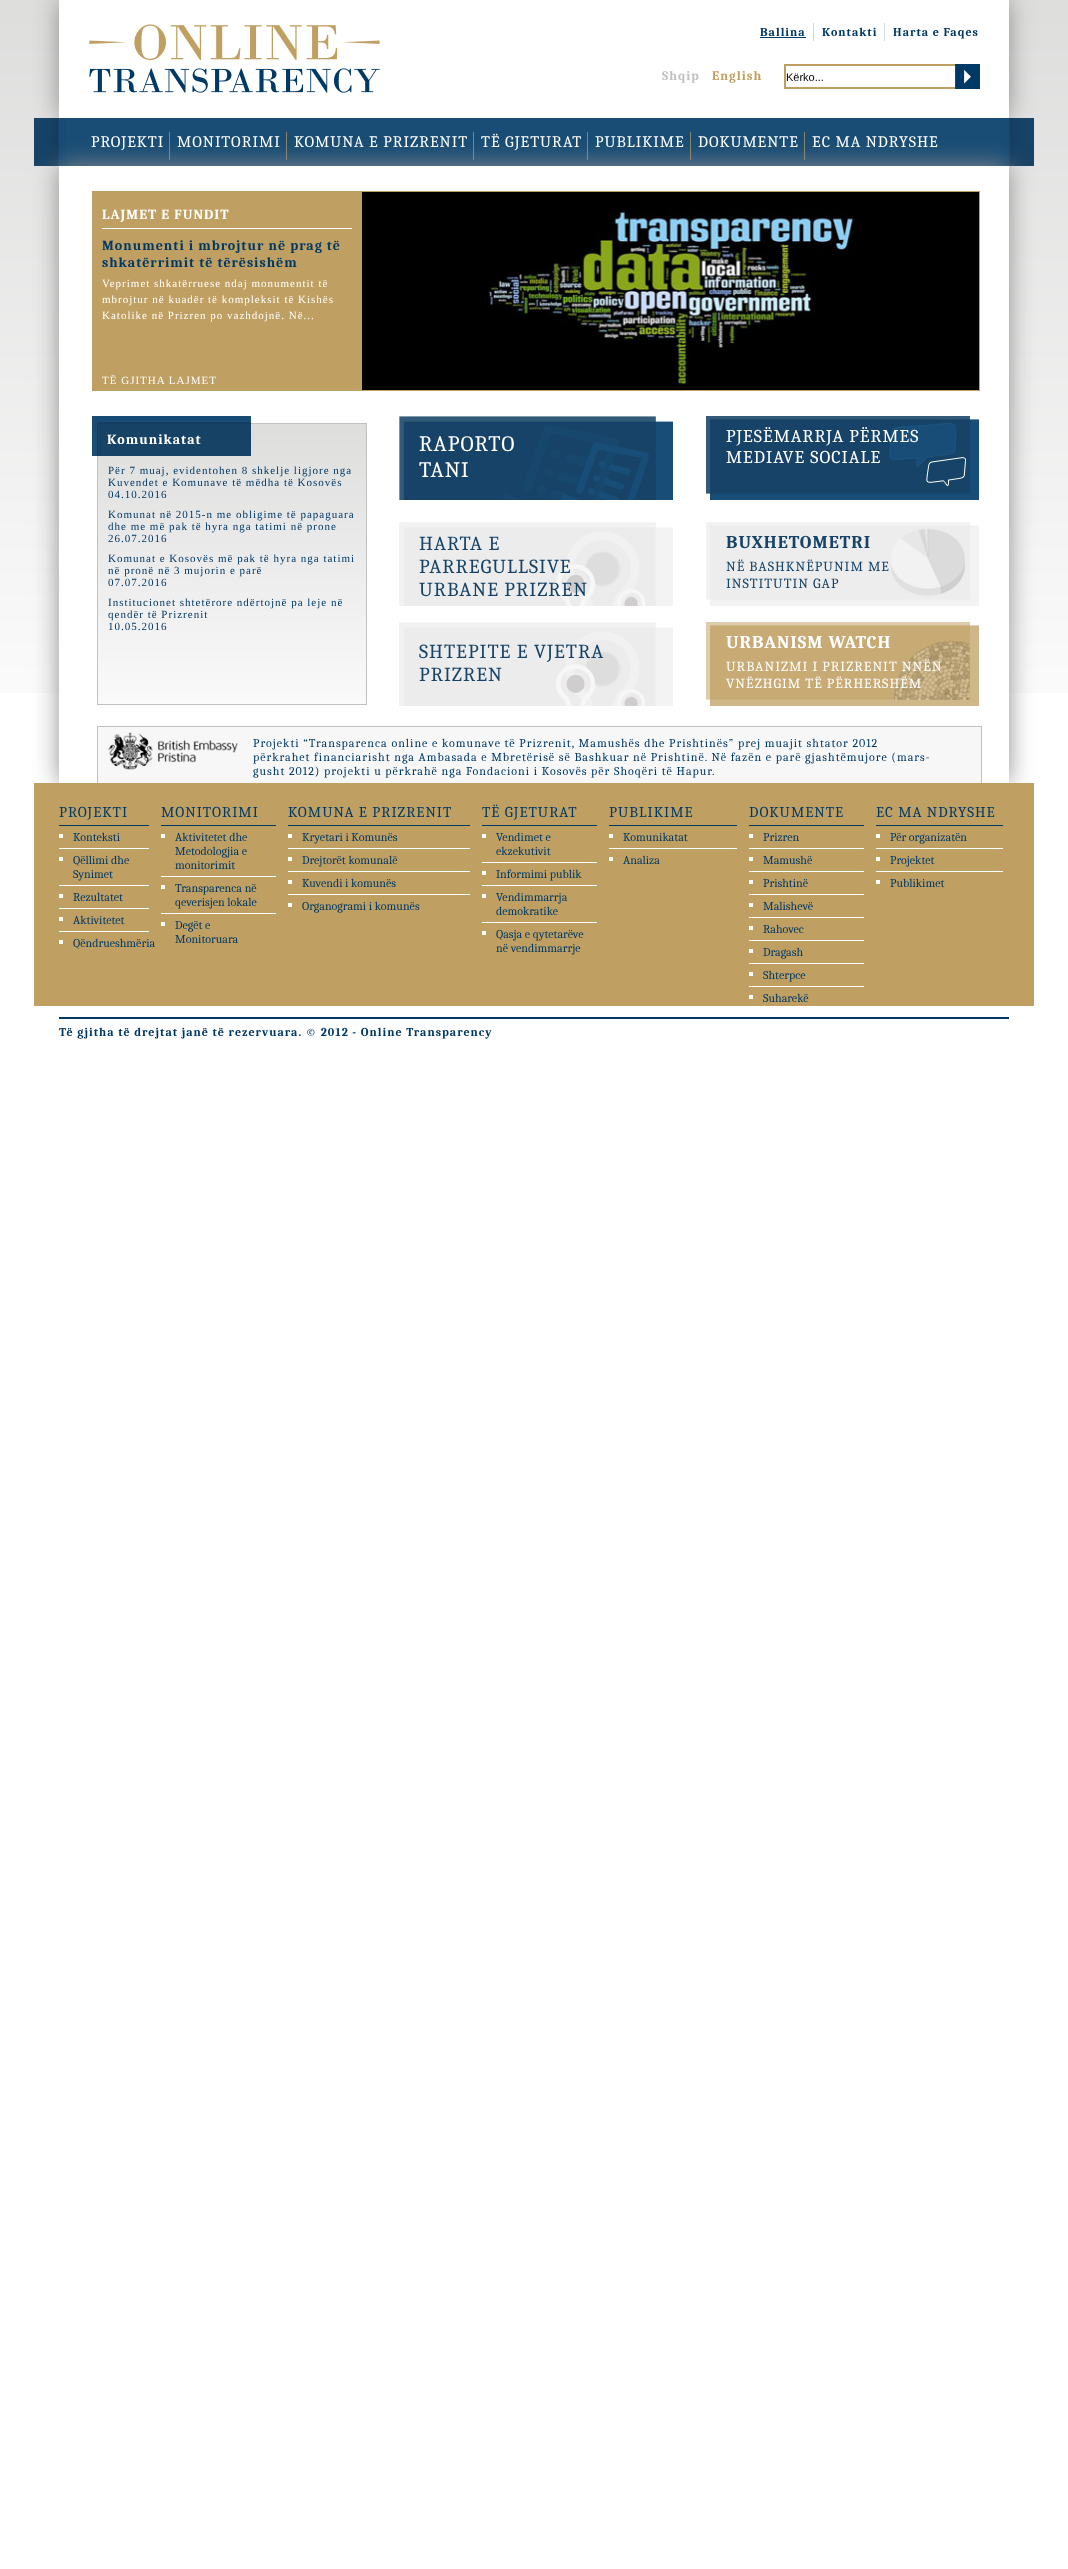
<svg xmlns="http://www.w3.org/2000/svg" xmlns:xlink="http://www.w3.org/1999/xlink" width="1068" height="2569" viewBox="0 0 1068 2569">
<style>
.cls-1{font:bold 12px Caladea;letter-spacing:1px;fill:#003966}
.cls-2{font:bold 13px Caladea;letter-spacing:1px;fill:#c2c1c1}
.cls-3{font:bold 13px Caladea;letter-spacing:1px;fill:#c0a062}
.cls-4{font:11px Liberation Sans;fill:#000000}
.cls-5{font:16px Caladea;letter-spacing:1px;fill:#ffffff}
.cls-6{font:bold 14px Caladea;letter-spacing:1px;fill:#ffffff}
.cls-7{font:bold 14px Caladea;letter-spacing:1px;fill:#003966}
.cls-8{font:11px Liberation Serif;letter-spacing:1px;fill:#ffffff}
.cls-9{font:11px Liberation Serif;letter-spacing:1px;fill:#003966}
.cls-10{font:22px Caladea;letter-spacing:1px;fill:#ffffff}
.cls-11{font:20px Caladea;letter-spacing:1px;fill:#164367}
.cls-12{font:18px Caladea;letter-spacing:1px;fill:#ffffff}
.cls-13{font:bold 18px Caladea;letter-spacing:1px;fill:#164367}
.cls-14{font:14px Caladea;letter-spacing:1px;fill:#164367}
.cls-15{font:bold 18px Caladea;letter-spacing:1px;fill:#ffffff}
.cls-16{font:14px Caladea;letter-spacing:1px;fill:#ffffff}
.cls-17{font:12px Caladea;letter-spacing:1px;fill:#003966}
.cls-18{font:15px Caladea;letter-spacing:1px;fill:#003966}
.cls-19{font:12px Caladea;fill:#003966}
</style>
<rect width="100%" height="100%" fill="#ffffff"/>
<image xlink:href="image0.png" x="0" y="0" width="1068" height="693"/>
<rect fill="#8d8d8d" filter="blur(12.5px)" x="59" y="0" width="950" height="118"/>
<rect fill="#ffffff" x="59" y="0" width="950" height="118"/>
<image xlink:href="image1.png" x="89" y="24" width="291" height="69"/>
<rect fill="#dad8d9" x="813" y="23" width="1" height="18"/>
<rect fill="#003966" x="760" y="37" width="46" height="1"/>
<rect fill="#dad8d9" x="884" y="23" width="1" height="18"/>
<image xlink:href="image2.png" x="784" y="64" width="196" height="25"/>
<image xlink:href="image3.png" x="34" y="118" width="1000" height="48"/>
<image xlink:href="image4.png" x="169" y="132" width="1" height="28"/>
<image xlink:href="image4.png" x="286" y="132" width="1" height="28"/>
<image xlink:href="image4.png" x="473" y="132" width="1" height="28"/>
<image xlink:href="image4.png" x="587" y="132" width="1" height="28"/>
<image xlink:href="image4.png" x="690" y="132" width="1" height="28"/>
<image xlink:href="image4.png" x="804" y="132" width="1" height="28"/>
<rect fill="#8d8d8d" filter="blur(12.5px)" x="59" y="166" width="950" height="617"/>
<rect fill="#ffffff" x="59" y="166" width="950" height="617"/>
<rect fill="#c0a062" x="92" y="191" width="270" height="200"/>
<rect fill="#ffffff" x="102" y="228" width="250" height="1"/>
<rect fill="#c0a062" x="362" y="191" width="618" height="1"/>
<rect fill="#c0a062" x="979" y="191" width="1" height="200"/>
<rect fill="#c0a062" x="362" y="390" width="618" height="1"/>
<image xlink:href="image5.png" x="362" y="192" width="617" height="198"/>
<image xlink:href="image7.png" x="98" y="424" width="268" height="280"/>
<rect fill="none" stroke="#c2c1c1" x="97.5" y="423.5" width="269" height="281"/>
<image xlink:href="image6.png" x="92" y="416" width="159" height="40"/>
<image xlink:href="image8.png" x="399" y="416" width="274" height="84"/>
<image xlink:href="image9.png" x="399" y="522" width="274" height="84"/>
<image xlink:href="image9.png" x="399" y="622" width="274" height="84"/>
<image xlink:href="image10.png" x="706" y="416" width="273" height="84"/>
<image xlink:href="image11.png" x="706" y="522" width="273" height="84"/>
<image xlink:href="image12.png" x="706" y="622" width="273" height="84"/>
<rect fill="#f7f7f7" x="98" y="727" width="883" height="56"/>
<rect fill="#c2c1c1" x="97" y="726" width="885" height="1"/>
<rect fill="#c2c1c1" x="981" y="726" width="1" height="57"/>
<rect fill="#c2c1c1" x="97" y="726" width="1" height="57"/>
<image xlink:href="image13.png" x="108" y="732" width="130" height="38"/>
<rect fill="#c0a062" x="34" y="783" width="1000" height="223"/>
<rect fill="#003966" x="59" y="825" width="90" height="1"/>
<rect fill="#ffffff" x="59" y="834" width="4" height="4"/>
<rect fill="#ffffff" x="59" y="848" width="90" height="1"/>
<rect fill="#ffffff" x="59" y="857" width="4" height="4"/>
<rect fill="#ffffff" x="59" y="885" width="90" height="1"/>
<rect fill="#ffffff" x="59" y="894" width="4" height="4"/>
<rect fill="#ffffff" x="59" y="908" width="90" height="1"/>
<rect fill="#ffffff" x="59" y="917" width="4" height="4"/>
<rect fill="#ffffff" x="59" y="931" width="90" height="1"/>
<rect fill="#ffffff" x="59" y="940" width="4" height="4"/>
<rect fill="#003966" x="161" y="825" width="115" height="1"/>
<rect fill="#ffffff" x="161" y="834" width="4" height="4"/>
<rect fill="#ffffff" x="161" y="876" width="115" height="1"/>
<rect fill="#ffffff" x="161" y="885" width="4" height="4"/>
<rect fill="#ffffff" x="161" y="913" width="115" height="1"/>
<rect fill="#ffffff" x="161" y="922" width="4" height="4"/>
<rect fill="#003966" x="288" y="825" width="182" height="1"/>
<rect fill="#ffffff" x="288" y="834" width="4" height="4"/>
<rect fill="#ffffff" x="288" y="848" width="182" height="1"/>
<rect fill="#ffffff" x="288" y="857" width="4" height="4"/>
<rect fill="#ffffff" x="288" y="871" width="182" height="1"/>
<rect fill="#ffffff" x="288" y="880" width="4" height="4"/>
<rect fill="#ffffff" x="288" y="894" width="182" height="1"/>
<rect fill="#ffffff" x="288" y="903" width="4" height="4"/>
<rect fill="#003966" x="482" y="825" width="115" height="1"/>
<rect fill="#ffffff" x="482" y="834" width="4" height="4"/>
<rect fill="#ffffff" x="482" y="862" width="115" height="1"/>
<rect fill="#ffffff" x="482" y="871" width="4" height="4"/>
<rect fill="#ffffff" x="482" y="885" width="115" height="1"/>
<rect fill="#ffffff" x="482" y="894" width="4" height="4"/>
<rect fill="#ffffff" x="482" y="922" width="115" height="1"/>
<rect fill="#ffffff" x="482" y="931" width="4" height="4"/>
<rect fill="#003966" x="609" y="825" width="128" height="1"/>
<rect fill="#ffffff" x="609" y="834" width="4" height="4"/>
<rect fill="#ffffff" x="609" y="848" width="128" height="1"/>
<rect fill="#ffffff" x="609" y="857" width="4" height="4"/>
<rect fill="#003966" x="749" y="825" width="115" height="1"/>
<rect fill="#ffffff" x="749" y="834" width="4" height="4"/>
<rect fill="#ffffff" x="749" y="848" width="115" height="1"/>
<rect fill="#ffffff" x="749" y="857" width="4" height="4"/>
<rect fill="#ffffff" x="749" y="871" width="115" height="1"/>
<rect fill="#ffffff" x="749" y="880" width="4" height="4"/>
<rect fill="#ffffff" x="749" y="894" width="115" height="1"/>
<rect fill="#ffffff" x="749" y="903" width="4" height="4"/>
<rect fill="#ffffff" x="749" y="917" width="115" height="1"/>
<rect fill="#ffffff" x="749" y="926" width="4" height="4"/>
<rect fill="#ffffff" x="749" y="940" width="115" height="1"/>
<rect fill="#ffffff" x="749" y="949" width="4" height="4"/>
<rect fill="#ffffff" x="749" y="963" width="115" height="1"/>
<rect fill="#ffffff" x="749" y="972" width="4" height="4"/>
<rect fill="#ffffff" x="749" y="986" width="115" height="1"/>
<rect fill="#ffffff" x="749" y="995" width="4" height="4"/>
<rect fill="#003966" x="876" y="825" width="127" height="1"/>
<rect fill="#ffffff" x="876" y="834" width="4" height="4"/>
<rect fill="#ffffff" x="876" y="848" width="127" height="1"/>
<rect fill="#ffffff" x="876" y="857" width="4" height="4"/>
<rect fill="#ffffff" x="876" y="871" width="127" height="1"/>
<rect fill="#ffffff" x="876" y="880" width="4" height="4"/>
<rect fill="#003966" x="59" y="1017" width="950" height="2"/>
<text class="cls-1" x="760" y="36">Ballina</text>
<text class="cls-1" x="822" y="36">Kontakti</text>
<text class="cls-1" x="893" y="36">Harta e Faqes</text>
<text class="cls-2" x="662" y="80">Shqip</text>
<text class="cls-3" x="712" y="80">English</text>
<text class="cls-4" x="786" y="81">Kërko...</text>
<text class="cls-5" x="91" y="147">PROJEKTI</text>
<text class="cls-5" x="177" y="147">MONITORIMI</text>
<text class="cls-5" x="294" y="147">KOMUNA E PRIZRENIT</text>
<text class="cls-5" x="481" y="147">TË GJETURAT</text>
<text class="cls-5" x="595" y="147">PUBLIKIME</text>
<text class="cls-5" x="698" y="147">DOKUMENTE</text>
<text class="cls-5" x="812" y="147">EC MA NDRYSHE</text>
<text class="cls-6" x="102" y="219">LAJMET E FUNDIT</text>
<text class="cls-7"><tspan x="102" y="250">Monumenti i mbrojtur në prag të</tspan><tspan x="102" y="267">shkatërrimit të tërësishëm</tspan></text>
<text class="cls-8"><tspan x="102" y="287">Veprimet shkatërruese ndaj monumentit të</tspan><tspan x="102" y="303">mbrojtur në kuadër të kompleksit të Kishës</tspan><tspan x="102" y="319">Katolike në Prizren po vazhdojnë. Në...</tspan></text>
<text class="cls-8" x="102" y="384">TË GJITHA LAJMET</text>
<text class="cls-6" x="107" y="444">Komunikatat</text>
<text class="cls-9"><tspan x="108" y="474">Për 7 muaj, evidentohen 8 shkelje ligjore nga</tspan><tspan x="108" y="486">Kuvendet e Komunave të mëdha të Kosovës</tspan><tspan x="108" y="498">04.10.2016</tspan><tspan x="108" y="518">Komunat në 2015-n me obligime të papaguara</tspan><tspan x="108" y="530">dhe me më pak të hyra nga tatimi në prone</tspan><tspan x="108" y="542">26.07.2016</tspan><tspan x="108" y="562">Komunat e Kosovës më pak të hyra nga tatimi</tspan><tspan x="108" y="574">në pronë në 3 mujorin e parë</tspan><tspan x="108" y="586">07.07.2016</tspan><tspan x="108" y="606">Institucionet shtetërore ndërtojnë pa leje në</tspan><tspan x="108" y="618">qendër të Prizrenit</tspan><tspan x="108" y="630">10.05.2016</tspan></text>
<text class="cls-10"><tspan x="419" y="451">RAPORTO</tspan><tspan x="419" y="477">TANI</tspan></text>
<text class="cls-11"><tspan x="419" y="550">HARTA E</tspan><tspan x="419" y="573">PARREGULLSIVE</tspan><tspan x="419" y="596">URBANE PRIZREN</tspan></text>
<text class="cls-11"><tspan x="419" y="658">SHTEPITE E VJETRA</tspan><tspan x="419" y="681">PRIZREN</tspan></text>
<text class="cls-12"><tspan x="726" y="442">PJESËMARRJA PËRMES</tspan><tspan x="726" y="463">MEDIAVE SOCIALE</tspan></text>
<text class="cls-13" x="726" y="548">BUXHETOMETRI</text>
<text class="cls-14"><tspan x="726" y="571">NË BASHKNËPUNIM ME</tspan><tspan x="726" y="588">INSTITUTIN GAP</tspan></text>
<text class="cls-15" x="726" y="648">URBANISM WATCH</text>
<text class="cls-16"><tspan x="726" y="671">URBANIZMI I PRIZRENIT NNËN</tspan><tspan x="726" y="688">VNËZHGIM TË PËRHERSHËM</tspan></text>
<text class="cls-17"><tspan x="253" y="747">Projekti “Transparenca online e komunave të Prizrenit, Mamushës dhe Prishtinës” prej muajit shtator 2012</tspan><tspan x="253" y="761">përkrahet financiarisht nga Ambasada e Mbretërisë së Bashkuar në Prishtinë. Në fazën e parë gjashtëmujore (mars-</tspan><tspan x="253" y="775">gusht 2012) projekti u përkrahë nga Fondacioni i Kosovës për Shoqëri të Hapur.</tspan></text>
<text class="cls-18" x="59" y="817">PROJEKTI</text>
<text class="cls-19"><tspan x="73" y="841">Konteksti</tspan><tspan x="73" y="864">Qëllimi dhe</tspan><tspan x="73" y="878">Synimet</tspan><tspan x="73" y="901">Rezultatet</tspan><tspan x="73" y="924">Aktivitetet</tspan><tspan x="73" y="947">Qëndrueshmëria</tspan></text>
<text class="cls-18" x="161" y="817">MONITORIMI</text>
<text class="cls-19"><tspan x="175" y="841">Aktivitetet dhe</tspan><tspan x="175" y="855">Metodologjia e</tspan><tspan x="175" y="869">monitorimit</tspan><tspan x="175" y="892">Transparenca në</tspan><tspan x="175" y="906">qeverisjen lokale</tspan><tspan x="175" y="929">Degët e</tspan><tspan x="175" y="943">Monitoruara</tspan></text>
<text class="cls-18" x="288" y="817">KOMUNA E PRIZRENIT</text>
<text class="cls-19"><tspan x="302" y="841">Kryetari i Komunës</tspan><tspan x="302" y="864">Drejtorët komunalë</tspan><tspan x="302" y="887">Kuvendi i komunës</tspan><tspan x="302" y="910">Organogrami i komunës</tspan></text>
<text class="cls-18" x="482" y="817">TË GJETURAT</text>
<text class="cls-19"><tspan x="496" y="841">Vendimet e</tspan><tspan x="496" y="855">ekzekutivit</tspan><tspan x="496" y="878">Informimi publik</tspan><tspan x="496" y="901">Vendimmarrja</tspan><tspan x="496" y="915">demokratike</tspan><tspan x="496" y="938">Qasja e qytetarëve</tspan><tspan x="496" y="952">në vendimmarrje</tspan></text>
<text class="cls-18" x="609" y="817">PUBLIKIME</text>
<text class="cls-19"><tspan x="623" y="841">Komunikatat</tspan><tspan x="623" y="864">Analiza</tspan></text>
<text class="cls-18" x="749" y="817">DOKUMENTE</text>
<text class="cls-19"><tspan x="763" y="841">Prizren</tspan><tspan x="763" y="864">Mamushë</tspan><tspan x="763" y="887">Prishtinë</tspan><tspan x="763" y="910">Malishevë</tspan><tspan x="763" y="933">Rahovec</tspan><tspan x="763" y="956">Dragash</tspan><tspan x="763" y="979">Shterpce</tspan><tspan x="763" y="1002">Suharekë</tspan></text>
<text class="cls-18" x="876" y="817">EC MA NDRYSHE</text>
<text class="cls-19"><tspan x="890" y="841">Për organizatën</tspan><tspan x="890" y="864">Projektet</tspan><tspan x="890" y="887">Publikimet</tspan></text>
<text class="cls-1" x="59" y="1036">Të gjitha të drejtat janë të rezervuara. © 2012 - Online Transparency</text>
</svg>
